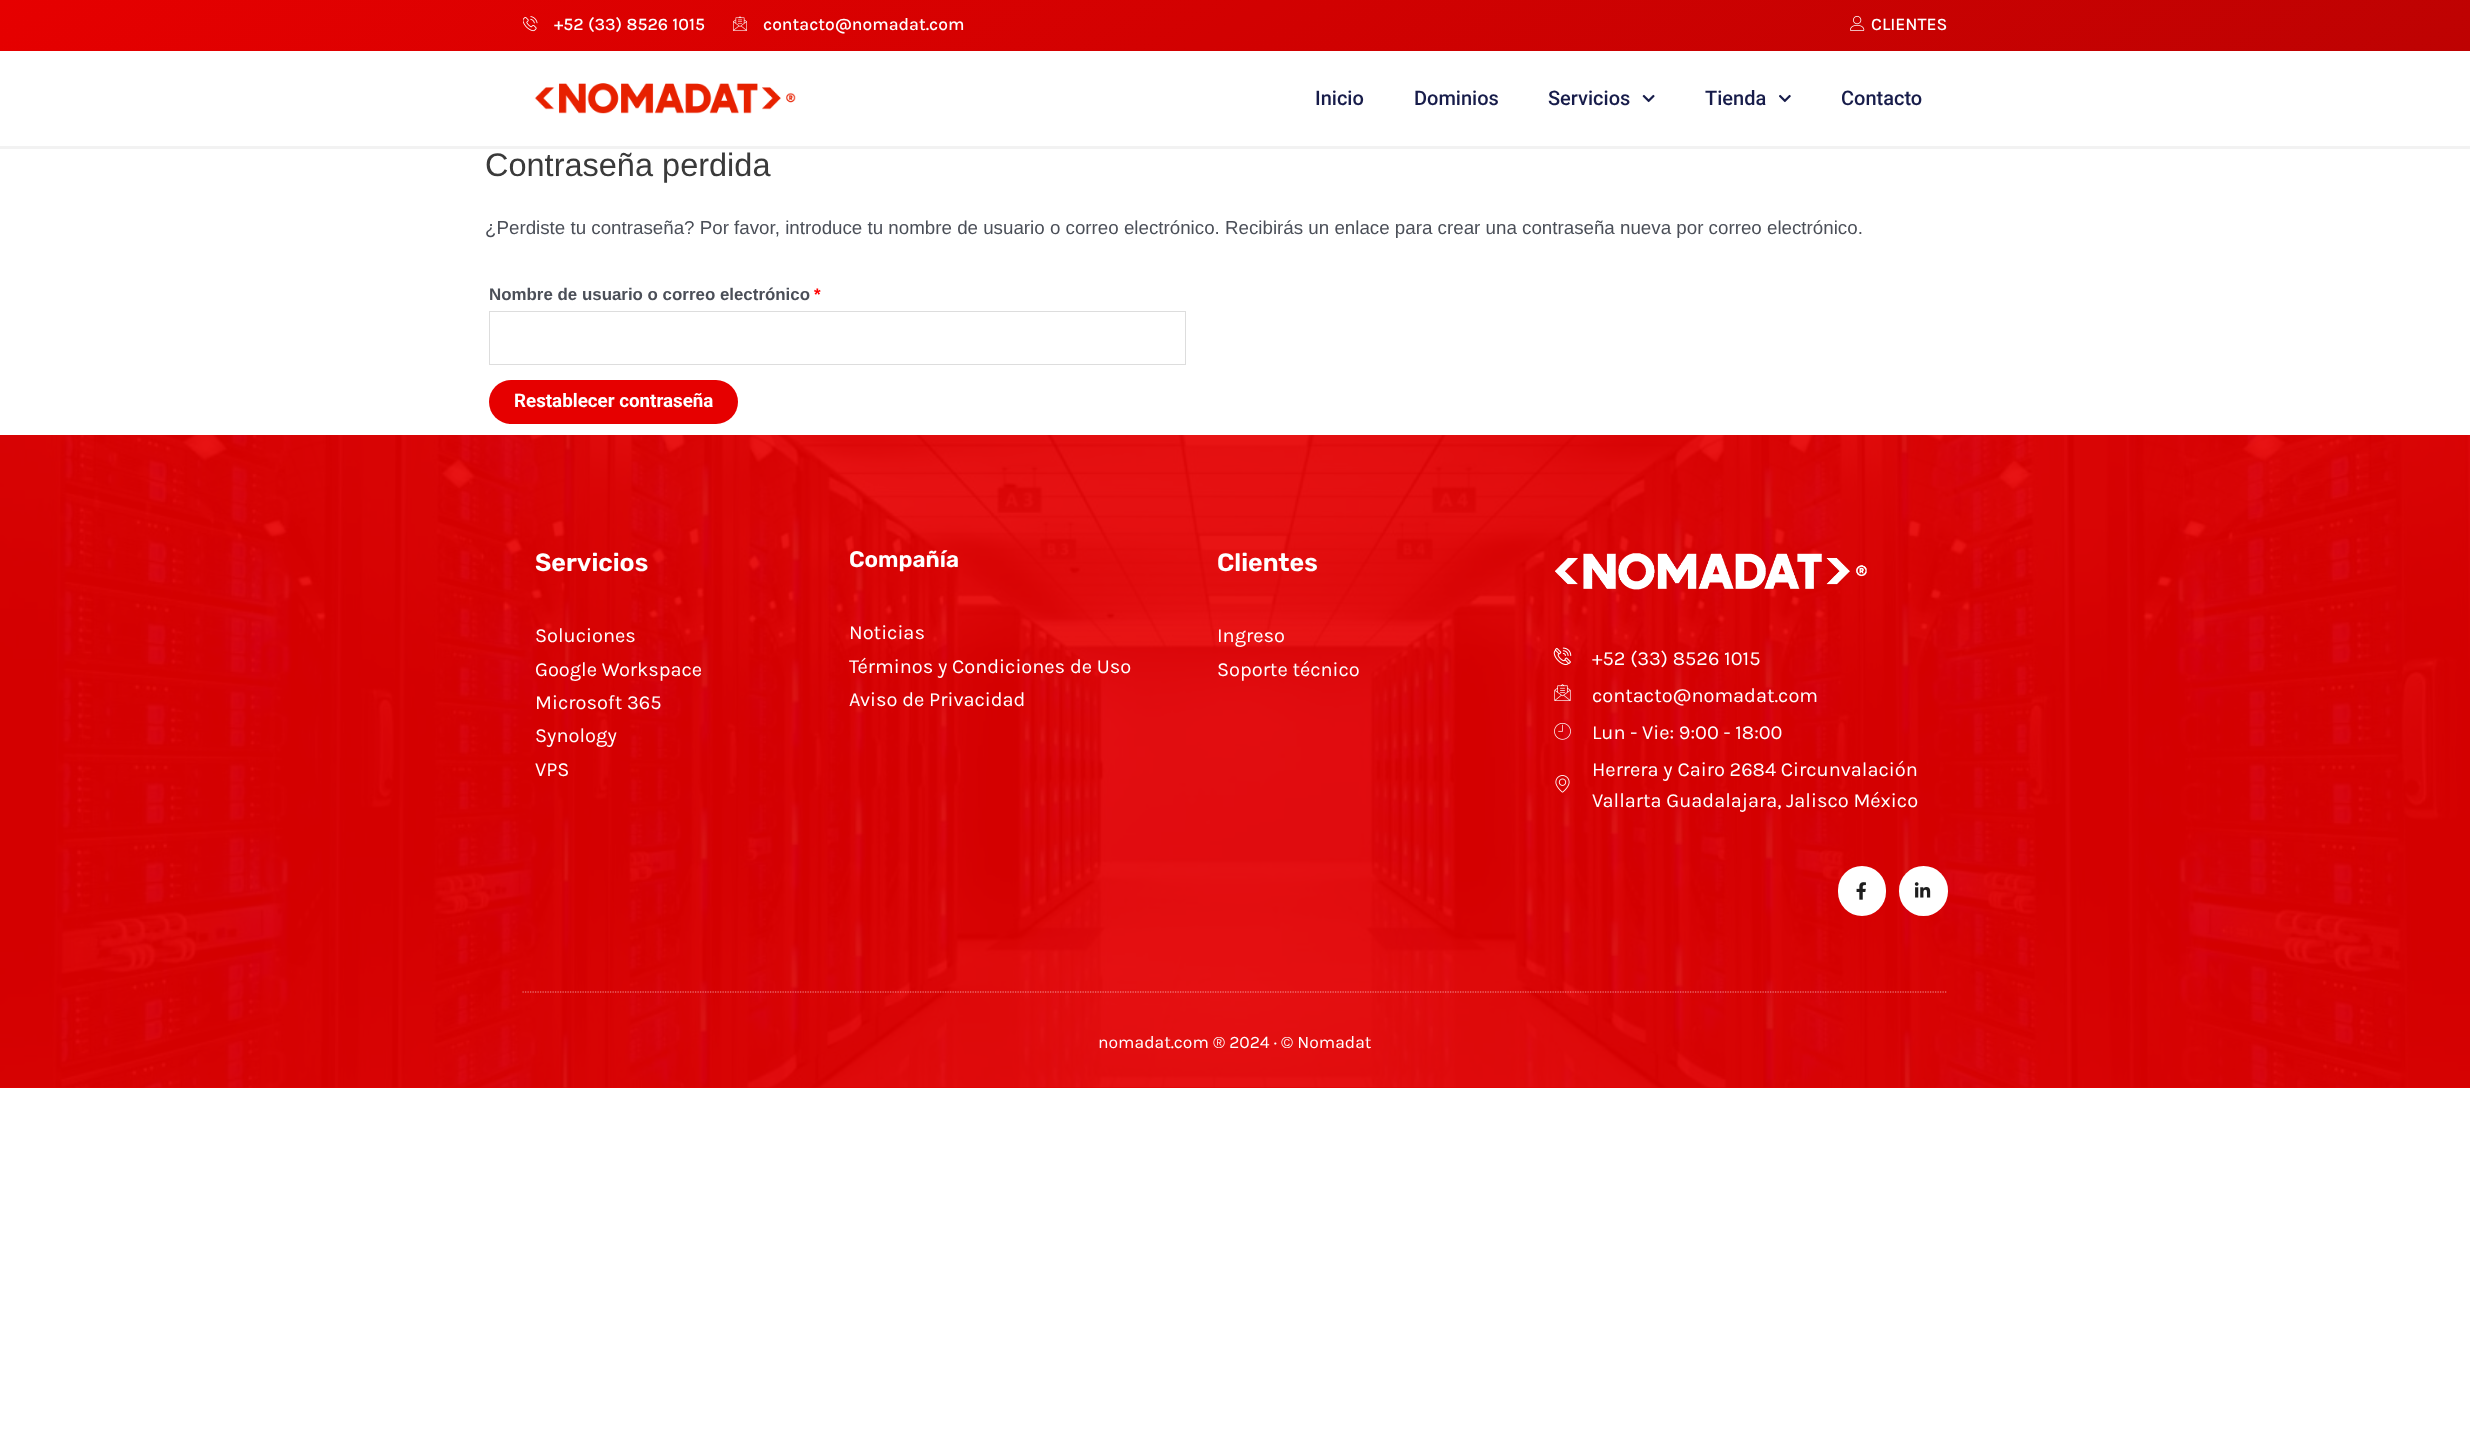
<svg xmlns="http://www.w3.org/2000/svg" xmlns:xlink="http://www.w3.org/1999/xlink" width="2470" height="1447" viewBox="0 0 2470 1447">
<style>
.cls-1{font:500 17.5px Karla;fill:#ffffff}
.cls-2{font:500 20px Roboto;fill:#171c4a}
.cls-3{font:32.5px Liberation Sans;fill:#3a3a3a}
.cls-4{font:18.75px Liberation Sans;fill:#4b4f58}
.cls-5{font:bold 16.9px Liberation Sans;fill:#4b4f58}
.cls-6{font:bold 16.9px Liberation Sans;fill:#ff0000}
.cls-7{font:bold 18.75px Roboto;fill:#ffffff}
.cls-8{font:600 25px Rubik;fill:#ffffff}
.cls-9{font:20px Karla;fill:#ffffff}
.cls-10{font:600 22.5px Rubik;fill:#ffffff}
.cls-11{font:17.5px Karla;fill:#ffffff}
</style>
<defs>
<linearGradient id="g1" gradientUnits="userSpaceOnUse" x1="857" y1="-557" x2="1613" y2="608"><stop offset="0" stop-color="#e60000"/><stop offset="1" stop-color="#be0202"/></linearGradient>
<clipPath id="clip1"><rect x="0" y="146" width="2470" height="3"/></clipPath>
</defs>
<rect width="100%" height="100%" fill="#ffffff"/>
<rect fill="url(#g1)" x="0" y="0" width="2470" height="51"/>
<image xlink:href="image0.png" x="523" y="16" width="15" height="16"/>
<image xlink:href="image1.png" x="733" y="16" width="14" height="15"/>
<image xlink:href="image2.png" x="1850" y="15" width="15" height="16"/>
<g clip-path="url(#clip1)">
<rect fill="#000000" fill-opacity="0.05" filter="blur(0.5px)" x="0" y="54" width="2470" height="95"/>
</g>
<image xlink:href="image3.png" x="534" y="83" width="262" height="31"/>
<image xlink:href="image4.png" x="1642" y="94" width="13" height="9"/>
<image xlink:href="image5.png" x="1779" y="94" width="12" height="9"/>
<rect fill="none" stroke="#dddddd" x="489.5" y="311.5" width="696" height="53"/>
<rect fill="#e60000" x="489" y="380" width="249" height="44" rx="22"/>
<rect fill="#e60000" x="0" y="435" width="2470" height="653"/>
<image xlink:href="image6.png" x="0" y="435" width="2470" height="653"/>
<image xlink:href="image7.png" x="1555" y="553" width="312" height="37"/>
<image xlink:href="image8.png" x="1553" y="647" width="19" height="19"/>
<image xlink:href="image9.png" x="1554" y="684" width="17" height="17"/>
<image xlink:href="image10.png" x="1554" y="722" width="17" height="18"/>
<image xlink:href="image11.png" x="1555" y="775" width="15" height="18"/>
<rect fill="#ffffff" x="1838" y="866" width="48" height="50" rx="24"/>
<image xlink:href="image12.png" x="1856" y="882" width="10" height="18"/>
<rect fill="#ffffff" x="1899" y="866" width="49" height="50" rx="24.5"/>
<image xlink:href="image13.png" x="1914" y="882" width="17" height="16"/>
<path fill="none" stroke="#ffffff" stroke-opacity="0.59" stroke-width="1.2" stroke-dasharray="1.25 1.25" d="M522.5 992H1947.5"/>
<text class="cls-1" x="554" y="30">+52 (33) 8526 1015</text>
<text class="cls-1" x="763" y="30">contacto@nomadat.com</text>
<text class="cls-1" x="1871" y="30">CLIENTES</text>
<text class="cls-2" x="1315" y="105">Inicio</text>
<text class="cls-2" x="1414" y="105">Dominios</text>
<text class="cls-2" x="1548" y="105">Servicios</text>
<text class="cls-2" x="1705" y="105">Tienda</text>
<text class="cls-2" x="1841" y="105">Contacto</text>
<text class="cls-3" x="485" y="176">Contraseña perdida</text>
<text class="cls-4" x="485" y="234">¿Perdiste tu contraseña? Por favor, introduce tu nombre de usuario o correo electrónico. Recibirás un enlace para crear una contraseña nueva por correo electrónico.</text>
<text class="cls-5" x="489" y="300">Nombre de usuario o correo electrónico</text>
<text class="cls-6" x="814" y="300">*</text>
<text class="cls-7" x="514" y="407">Restablecer contraseña</text>
<text class="cls-8" x="535" y="571">Servicios</text>
<text class="cls-9"><tspan x="535" y="642">Soluciones</tspan><tspan x="535" y="676">Google Workspace</tspan><tspan x="535" y="709">Microsoft 365</tspan><tspan x="535" y="742">Synology</tspan><tspan x="535" y="776">VPS</tspan></text>
<text class="cls-10" x="849" y="567">Compañía</text>
<text class="cls-9"><tspan x="849" y="639">Noticias</tspan><tspan x="849" y="673">Términos y Condiciones de Uso</tspan><tspan x="849" y="706">Aviso de Privacidad</tspan></text>
<text class="cls-8" x="1217" y="571">Clientes</text>
<text class="cls-9"><tspan x="1217" y="642">Ingreso</tspan><tspan x="1217" y="676">Soporte técnico</tspan></text>
<text class="cls-9"><tspan x="1592" y="665">+52 (33) 8526 1015</tspan><tspan x="1592" y="702">contacto@nomadat.com</tspan><tspan x="1592" y="739">Lun - Vie: 9:00 - 18:00</tspan><tspan x="1592" y="776">Herrera y Cairo 2684 Circunvalación</tspan><tspan x="1592" y="807">Vallarta Guadalajara, Jalisco México</tspan></text>
<text class="cls-11" x="1098" y="1048">nomadat.com ® 2024 · © Nomadat</text>
</svg>
